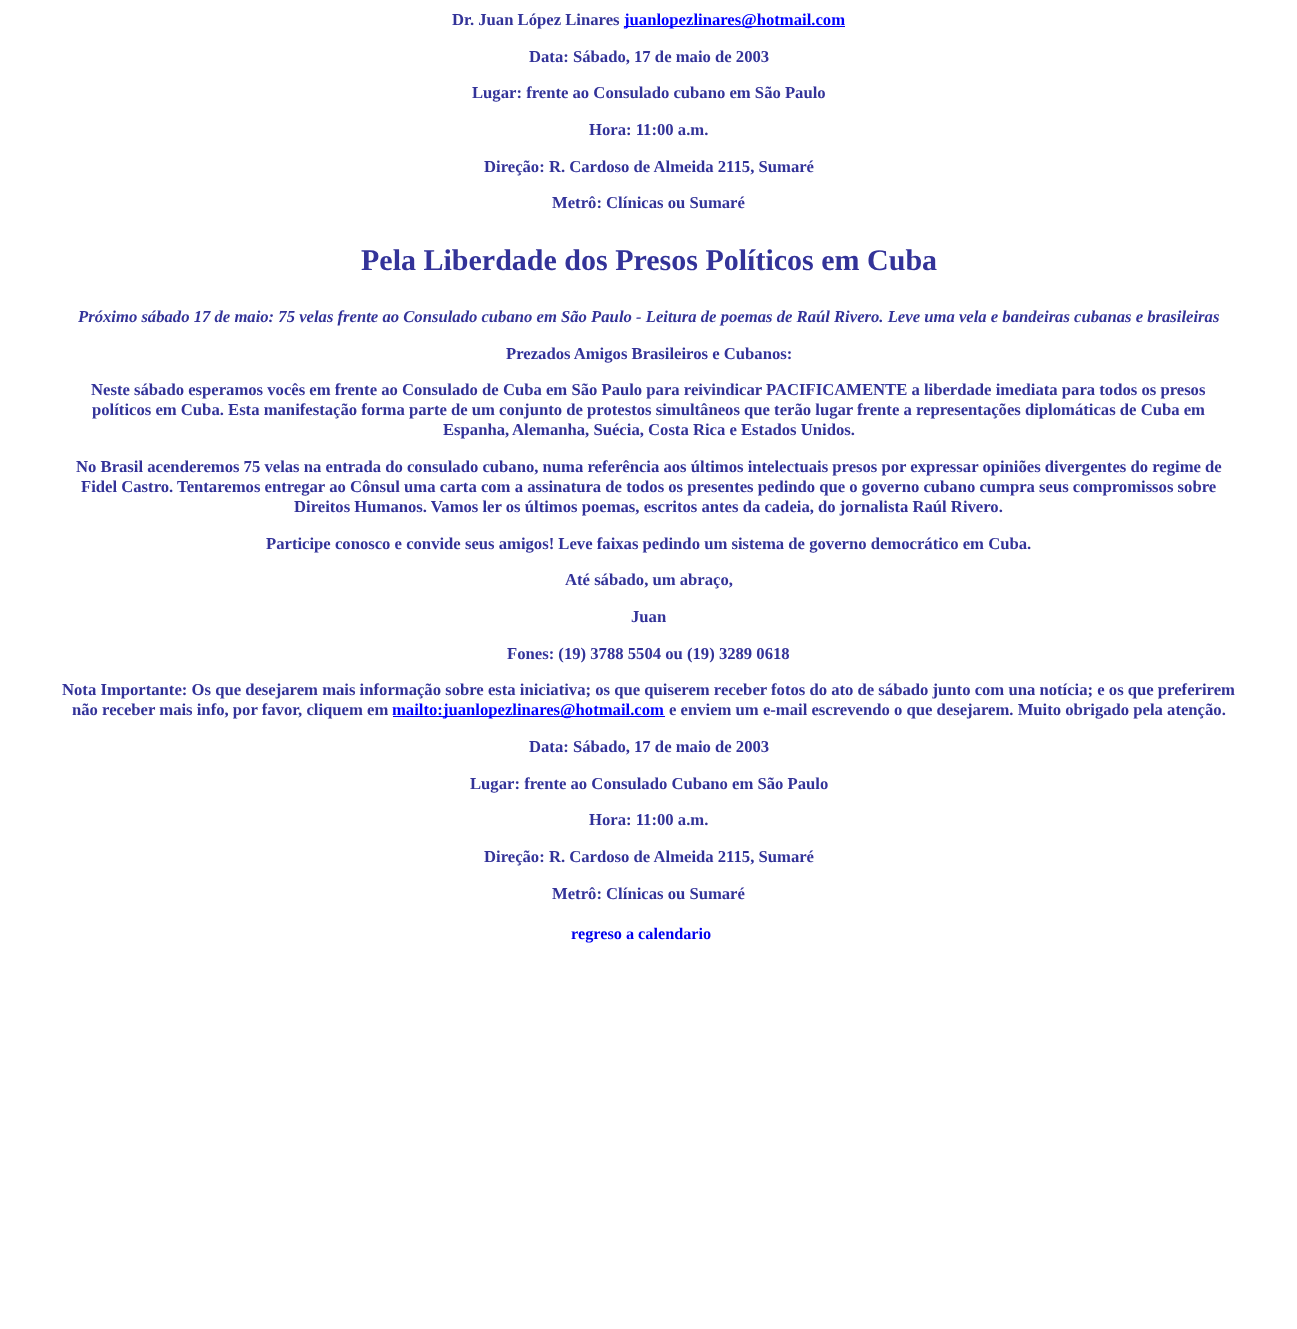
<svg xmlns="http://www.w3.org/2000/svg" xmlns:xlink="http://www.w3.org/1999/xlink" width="1297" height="1329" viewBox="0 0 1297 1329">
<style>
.cls-1{font:bold 16.67px Liberation Serif;fill:#333399}
.cls-2{font:bold 16.67px Liberation Serif;fill:#0000ff}
.cls-3{font:bold 30px Liberation Serif;fill:#333399}
.cls-4{font:italic bold 16.67px Liberation Serif;fill:#333399}
.cls-5{font:bold 16.25px Liberation Serif;fill:#0000ee}
</style>
<rect width="100%" height="100%" fill="#ffffff"/>
<rect fill="#0000ee" x="624" y="26" width="221" height="1"/>
<rect fill="#0000ee" x="393" y="716" width="272" height="1"/>
<text class="cls-1" x="452" y="25">Dr. Juan López Linares</text>
<text class="cls-2" x="624" y="25">juanlopezlinares@hotmail.com</text>
<text class="cls-1" x="529" y="62">Data: Sábado, 17 de maio de 2003</text>
<text class="cls-1" x="472" y="98">Lugar: frente ao Consulado cubano em São Paulo</text>
<text class="cls-1" x="589" y="135">Hora: 11:00 a.m.</text>
<text class="cls-1" x="484" y="172">Direção: R. Cardoso de Almeida 2115, Sumaré</text>
<text class="cls-1" x="552" y="208">Metrô: Clínicas ou Sumaré</text>
<text class="cls-3" x="361" y="270">Pela Liberdade dos Presos Políticos em Cuba</text>
<text class="cls-4" x="78" y="322">Próximo sábado 17 de maio: 75 velas frente ao Consulado cubano em São Paulo - Leitura de poemas de Raúl Rivero. Leve uma vela e bandeiras cubanas e brasileiras</text>
<text class="cls-1" x="506" y="359">Prezados Amigos Brasileiros e Cubanos:</text>
<text class="cls-1" x="91" y="395">Neste sábado esperamos vocês em frente ao Consulado de Cuba em São Paulo para reivindicar PACIFICAMENTE a liberdade imediata para todos os presos</text>
<text class="cls-1" x="92" y="415">políticos em Cuba. Esta manifestação forma parte de um conjunto de protestos simultâneos que terão lugar frente a representações diplomáticas de Cuba em</text>
<text class="cls-1" x="443" y="435">Espanha,</text>
<text class="cls-1" x="512" y="435">Alemanha, Suécia, Costa Rica e Estados Unidos.</text>
<text class="cls-1" x="76" y="472">No Brasil acenderemos 75 velas na entrada do consulado cubano, numa referência aos últimos intelectuais presos por expressar opiniões divergentes do regime de</text>
<text class="cls-1" x="81" y="492">Fidel Castro. Tentaremos entregar ao Cônsul uma carta com a assinatura de todos os presentes pedindo que o governo cubano cumpra seus compromissos sobre</text>
<text class="cls-1" x="294" y="512">Direitos Humanos. Vamos ler os últimos poemas, escritos antes da cadeia, do jornalista Raúl Rivero.</text>
<text class="cls-1" x="266" y="549">Participe conosco e convide seus amigos! Leve faixas pedindo um sistema de governo democrático em Cuba.</text>
<text class="cls-1" x="565" y="585">Até sábado, um abraço,</text>
<text class="cls-1" x="631" y="622">Juan</text>
<text class="cls-1" x="507" y="659">Fones: (19) 3788 5504 ou (19) 3289 0618</text>
<text class="cls-1" x="62" y="695">Nota Importante: Os que desejarem mais informação sobre esta iniciativa; os que quiserem receber fotos do ato de sábado junto com una notícia; e os que preferirem</text>
<text class="cls-1" x="72" y="715">não receber mais info, por favor, cliquem em</text>
<text class="cls-2" x="392" y="715">mailto:juanlopezlinares@hotmail.com</text>
<text class="cls-1" x="669" y="715">e enviem um e-mail escrevendo o que desejarem. Muito obrigado pela atenção.</text>
<text class="cls-1" x="529" y="752">Data: Sábado, 17 de maio de 2003</text>
<text class="cls-1" x="470" y="789">Lugar: frente ao Consulado Cubano em São Paulo</text>
<text class="cls-1" x="589" y="825">Hora: 11:00 a.m.</text>
<text class="cls-1" x="484" y="862">Direção: R. Cardoso de Almeida 2115, Sumaré</text>
<text class="cls-1" x="552" y="899">Metrô: Clínicas ou Sumaré</text>
<text class="cls-5" x="571" y="939">regreso a calendario</text>
</svg>
